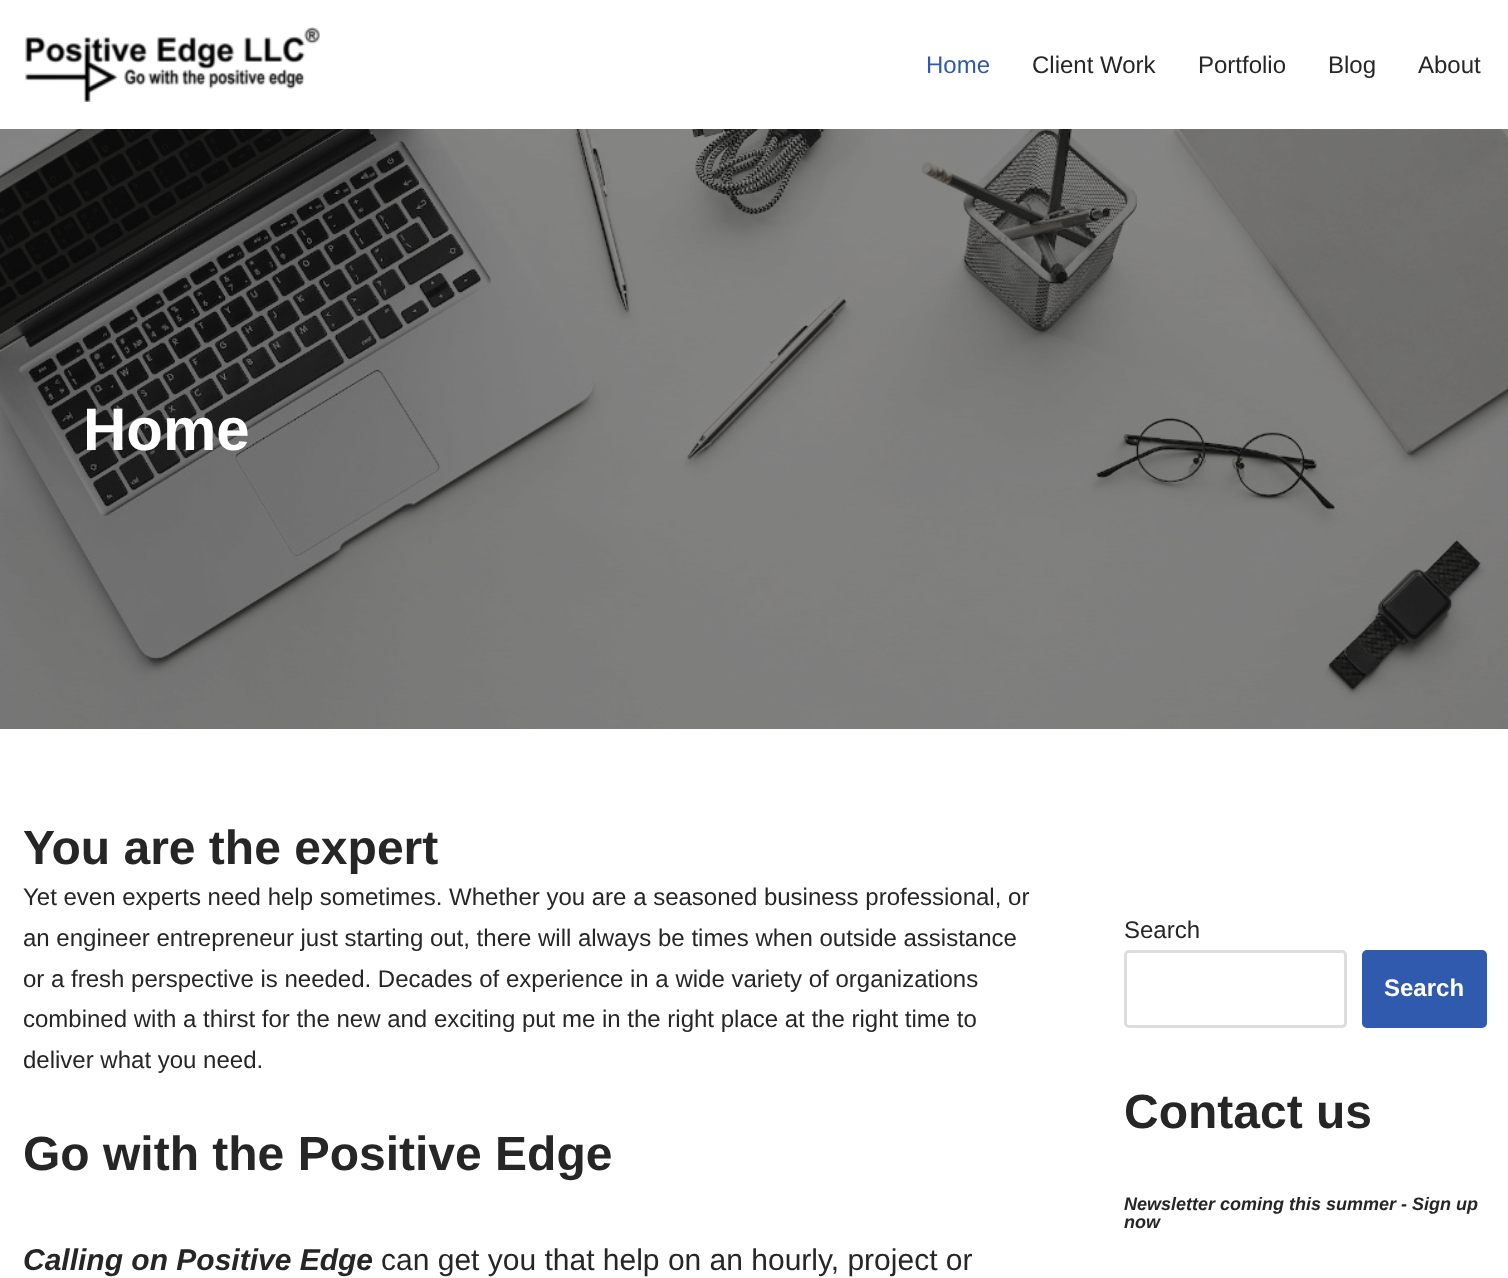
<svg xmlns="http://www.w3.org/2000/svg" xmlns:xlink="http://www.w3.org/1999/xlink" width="1508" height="1278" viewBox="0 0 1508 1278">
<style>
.cls-1{font:24px Liberation Sans;fill:#2f5aae}
.cls-2{font:24px Liberation Sans;fill:#272626}
.cls-3{font:bold 60px Liberation Sans;fill:#ffffff}
.cls-4{font:bold 48px Liberation Sans;fill:#272626}
.cls-5{font:italic bold 30px Liberation Sans;fill:#272626}
.cls-6{font:30px Liberation Sans;fill:#272626}
.cls-7{font:bold 24px Liberation Sans;fill:#ffffff}
.cls-8{font:italic bold 18px Liberation Sans;fill:#272626}
</style>
<rect width="100%" height="100%" fill="#ffffff"/>
<image xlink:href="image0.png" x="25" y="27" width="295" height="75"/>
<image xlink:href="image1.png" x="0" y="129" width="1508" height="600"/>
<rect fill="none" stroke="#dddddd" stroke-width="3" x="1125.5" y="951.5" width="220" height="75" rx="3.5"/>
<rect fill="#2f5aae" x="1362" y="950" width="125" height="78" rx="5"/>
<text class="cls-1" x="926" y="73">Home</text>
<text class="cls-2" x="1032" y="73">Client Work</text>
<text class="cls-2" x="1198" y="73">Portfolio</text>
<text class="cls-2" x="1328" y="73">Blog</text>
<text class="cls-2" x="1418" y="73">About</text>
<text class="cls-3" x="83" y="450">Home</text>
<text class="cls-4" x="23" y="864">You are the expert</text>
<text class="cls-2"><tspan x="23" y="905">Yet even experts need help sometimes. Whether you are a seasoned business professional, or</tspan><tspan x="23" y="946">an engineer entrepreneur just starting out, there will always be times when outside assistance</tspan><tspan x="23" y="987">or a fresh perspective is needed. Decades of experience in a wide variety of organizations</tspan><tspan x="23" y="1027">combined with a thirst for the new and exciting put me in the right place at the right time to</tspan><tspan x="23" y="1068">deliver what you need.</tspan></text>
<text class="cls-4" x="23" y="1170">Go with the Positive Edge</text>
<text class="cls-5" x="23" y="1270">Calling on Positive Edge</text>
<text class="cls-6" x="381" y="1270">can get you that help on an hourly, project or</text>
<text class="cls-2" x="1124" y="938">Search</text>
<text class="cls-7" x="1384" y="996">Search</text>
<text class="cls-4" x="1124" y="1128">Contact us</text>
<text class="cls-8"><tspan x="1124" y="1210">Newsletter coming this summer - Sign up</tspan><tspan x="1124" y="1228">now</tspan></text>
</svg>
